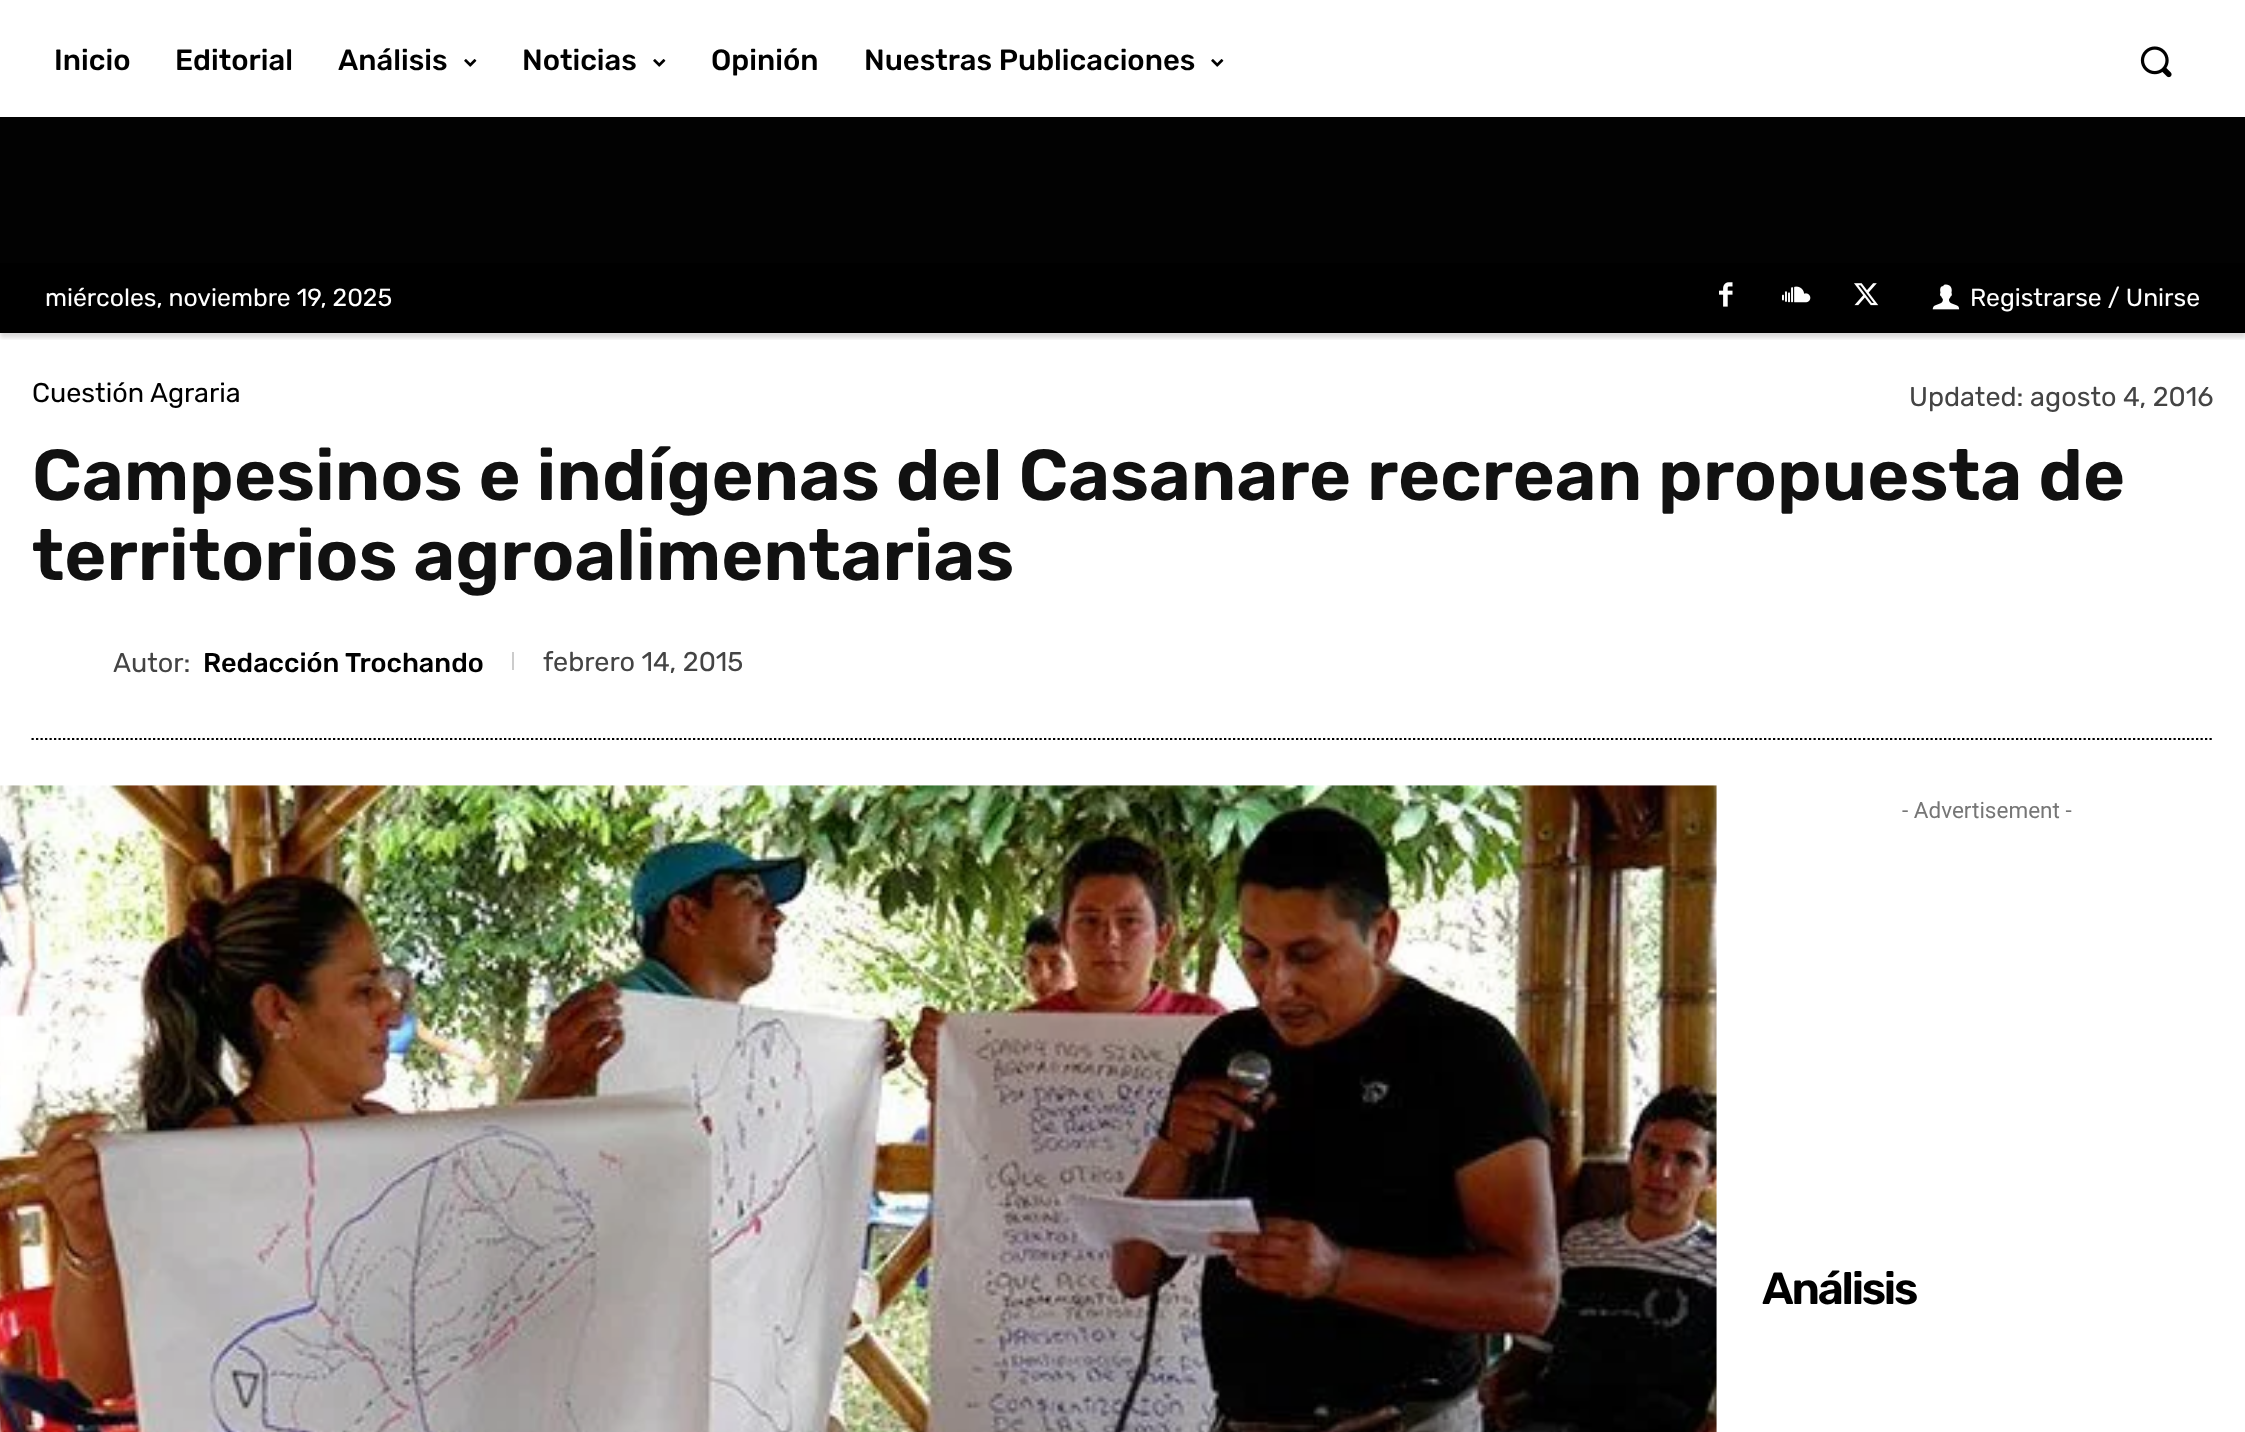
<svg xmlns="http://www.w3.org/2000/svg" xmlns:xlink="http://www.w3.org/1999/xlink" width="2245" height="1432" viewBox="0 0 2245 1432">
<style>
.cls-1{font:500 29.25px Rubik;fill:#000000}
.cls-2{font:24.75px Rubik;fill:#ffffff}
.cls-3{font:27px Rubik;fill:#000000}
.cls-4{font:27px Rubik;fill:#444444}
.cls-5{font:600 72px Rubik;fill:#111111}
.cls-6{font:500 27px Rubik;fill:#000000}
.cls-7{font:22.5px Roboto;fill:#767676}
.cls-8{font:600 45px Rubik;letter-spacing:-2.25px;fill:#000000}
</style>
<defs>
<clipPath id="clip1"><rect x="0" y="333" width="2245" height="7"/></clipPath>
</defs>
<rect width="100%" height="100%" fill="#ffffff"/>
<image xlink:href="image0.png" x="464" y="59" width="13" height="8"/>
<image xlink:href="image0.png" x="653" y="59" width="13" height="8"/>
<image xlink:href="image0.png" x="1211" y="59" width="13" height="8"/>
<image xlink:href="image1.png" x="2140" y="46" width="32" height="32"/>
<rect fill="#020202" x="0" y="117" width="2245" height="146"/>
<rect fill="#000000" x="0" y="263" width="2245" height="70"/>
<image xlink:href="image2.png" x="1719" y="282" width="14" height="25"/>
<image xlink:href="image3.png" x="1782" y="286" width="29" height="17"/>
<image xlink:href="image4.png" x="1854" y="283" width="25" height="23"/>
<image xlink:href="image5.png" x="1932" y="284" width="28" height="26"/>
<g clip-path="url(#clip1)">
<rect fill="#0a0000" fill-opacity="0.15" filter="blur(2px)" x="0" y="268" width="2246" height="70"/>
</g>
<rect fill="#cccccc" x="512" y="652" width="2" height="18"/>
<path fill="none" stroke="#000000" stroke-width="2.2" stroke-dasharray="2.25 2.25" d="M31.5 739H2214"/>
<image xlink:href="image6.png" x="0" y="785" width="1717" height="647"/>
<text class="cls-1" x="54" y="70">Inicio</text>
<text class="cls-1" x="175" y="70">Editorial</text>
<text class="cls-1" x="338" y="70">Análisis</text>
<text class="cls-1" x="522" y="70">Noticias</text>
<text class="cls-1" x="711" y="70">Opinión</text>
<text class="cls-1" x="864" y="70">Nuestras Publicaciones</text>
<text class="cls-2" x="45" y="306">miércoles, noviembre 19, 2025</text>
<text class="cls-2" x="1970" y="306">Registrarse / Unirse</text>
<text class="cls-3" x="32" y="402">Cuestión Agraria</text>
<text class="cls-4" x="1909" y="406">Updated: agosto 4, 2016</text>
<text class="cls-5"><tspan x="32" y="500">Campesinos e indígenas del Casanare recrean propuesta de</tspan><tspan x="32" y="580">territorios agroalimentarias</tspan></text>
<text class="cls-4" x="113" y="672">Autor:</text>
<text class="cls-6" x="203" y="672">Redacción Trochando</text>
<text class="cls-4" x="543" y="671">febrero 14, 2015</text>
<text class="cls-7" x="1902" y="818">- Advertisement -</text>
<text class="cls-8" x="1762" y="1304">Análisis</text>
</svg>
